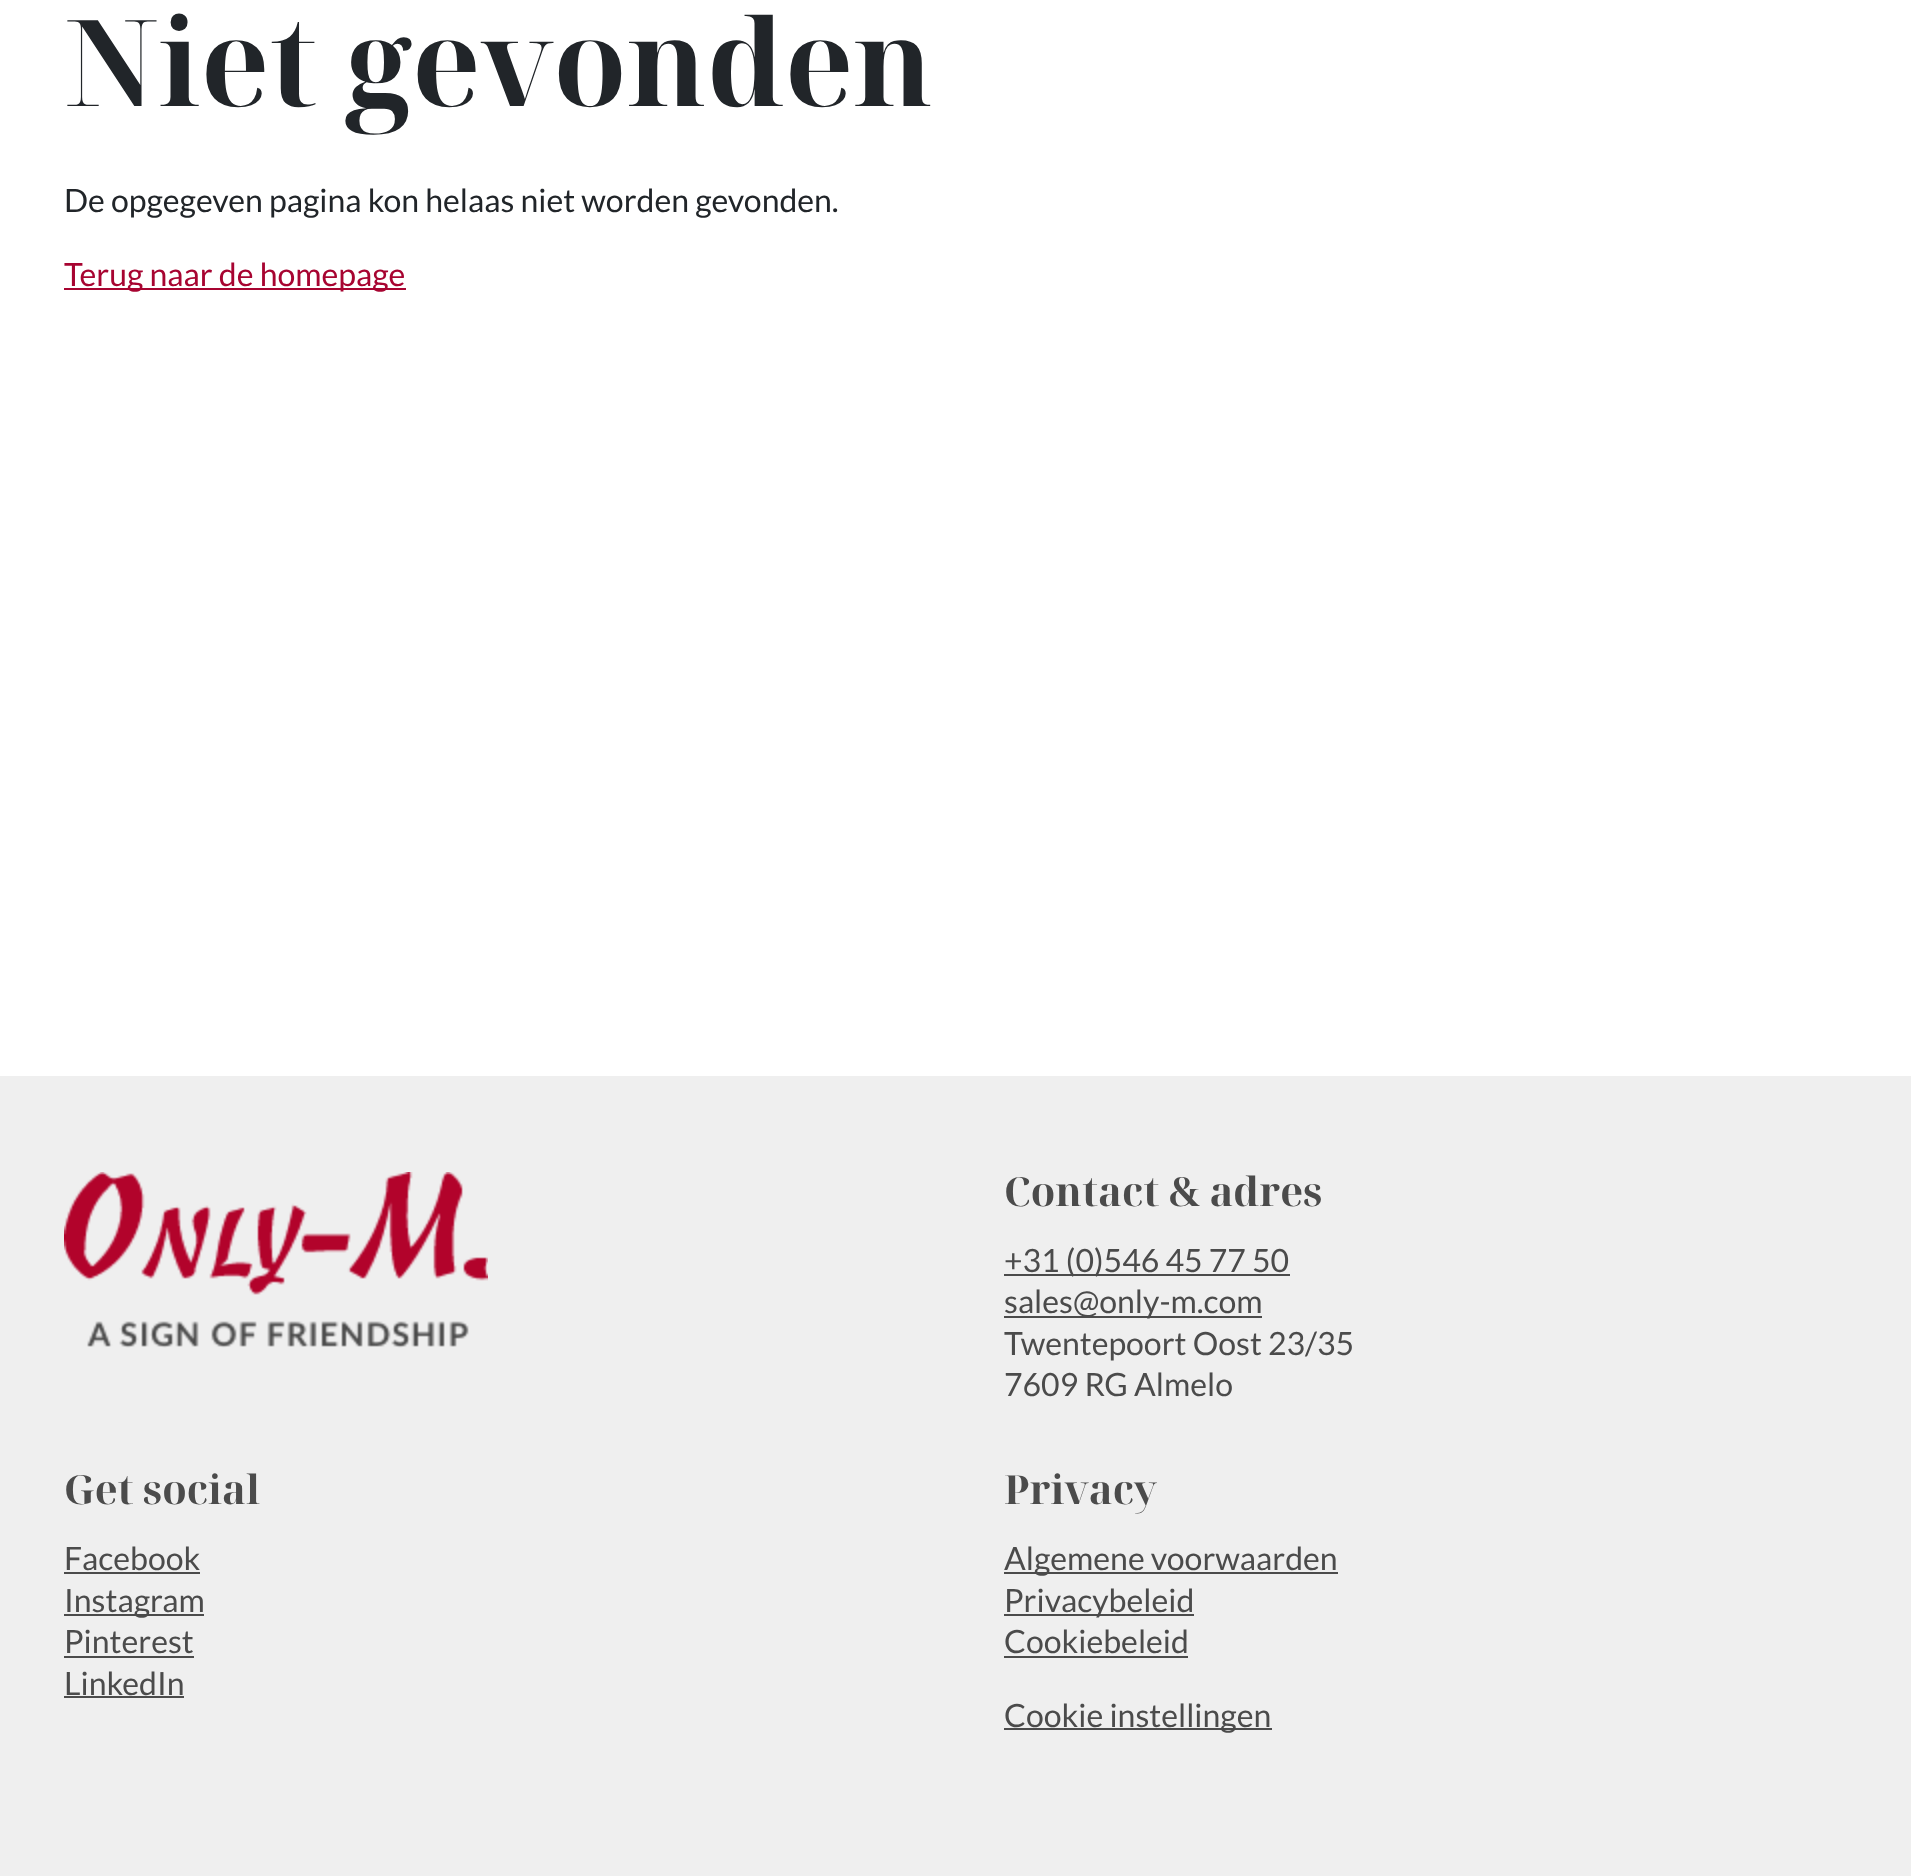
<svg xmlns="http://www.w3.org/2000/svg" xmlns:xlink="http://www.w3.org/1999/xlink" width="1911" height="1876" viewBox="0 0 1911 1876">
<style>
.cls-1{font:bold 120px Noto Serif Display;fill:#212529}
.cls-2{font:32px Lato;fill:#212529}
.cls-3{font:32px Lato;fill:#a70431}
.cls-4{font:bold 40px Noto Serif Display;fill:#4b4b4b}
.cls-5{font:32px Lato;fill:#4b4b4b}
</style>
<rect width="100%" height="100%" fill="#ffffff"/>
<rect fill="#a70431" x="64" y="288" width="342" height="2"/>
<rect fill="#efefef" x="0" y="1076" width="1911" height="800"/>
<image xlink:href="image0.png" x="64" y="1172" width="424" height="176"/>
<rect fill="#4b4b4b" x="1004" y="1274" width="286" height="2"/>
<rect fill="#4b4b4b" x="1004" y="1316" width="258" height="2"/>
<rect fill="#4b4b4b" x="64" y="1572" width="136" height="2"/>
<rect fill="#4b4b4b" x="64" y="1614" width="140" height="2"/>
<rect fill="#4b4b4b" x="64" y="1656" width="130" height="2"/>
<rect fill="#4b4b4b" x="64" y="1696" width="120" height="2"/>
<rect fill="#4b4b4b" x="1004" y="1572" width="334" height="2"/>
<rect fill="#4b4b4b" x="1004" y="1614" width="190" height="2"/>
<rect fill="#4b4b4b" x="1004" y="1656" width="184" height="2"/>
<rect fill="#4b4b4b" x="1004" y="1728" width="268" height="2"/>
<text class="cls-1" x="64" y="106">Niet gevonden</text>
<text class="cls-2" x="64" y="212">De opgegeven pagina kon helaas niet worden gevonden.</text>
<text class="cls-3" x="64" y="286">Terug naar de homepage</text>
<text class="cls-4" x="1004" y="1206">Contact &amp; adres</text>
<text class="cls-5"><tspan x="1004" y="1272">+31 (0)546 45 77 50</tspan><tspan x="1004" y="1313">sales@only-m.com</tspan><tspan x="1004" y="1355">Twentepoort Oost 23/35</tspan><tspan x="1004" y="1396">7609 RG Almelo</tspan></text>
<text class="cls-4" x="64" y="1504">Get social</text>
<text class="cls-5"><tspan x="64" y="1570">Facebook</tspan><tspan x="64" y="1612">Instagram</tspan><tspan x="64" y="1653">Pinterest</tspan><tspan x="64" y="1695">LinkedIn</tspan></text>
<text class="cls-4" x="1004" y="1504">Privacy</text>
<text class="cls-5"><tspan x="1004" y="1570">Algemene voorwaarden</tspan><tspan x="1004" y="1612">Privacybeleid</tspan><tspan x="1004" y="1653">Cookiebeleid</tspan></text>
<text class="cls-5" x="1004" y="1727">Cookie instellingen</text>
</svg>
